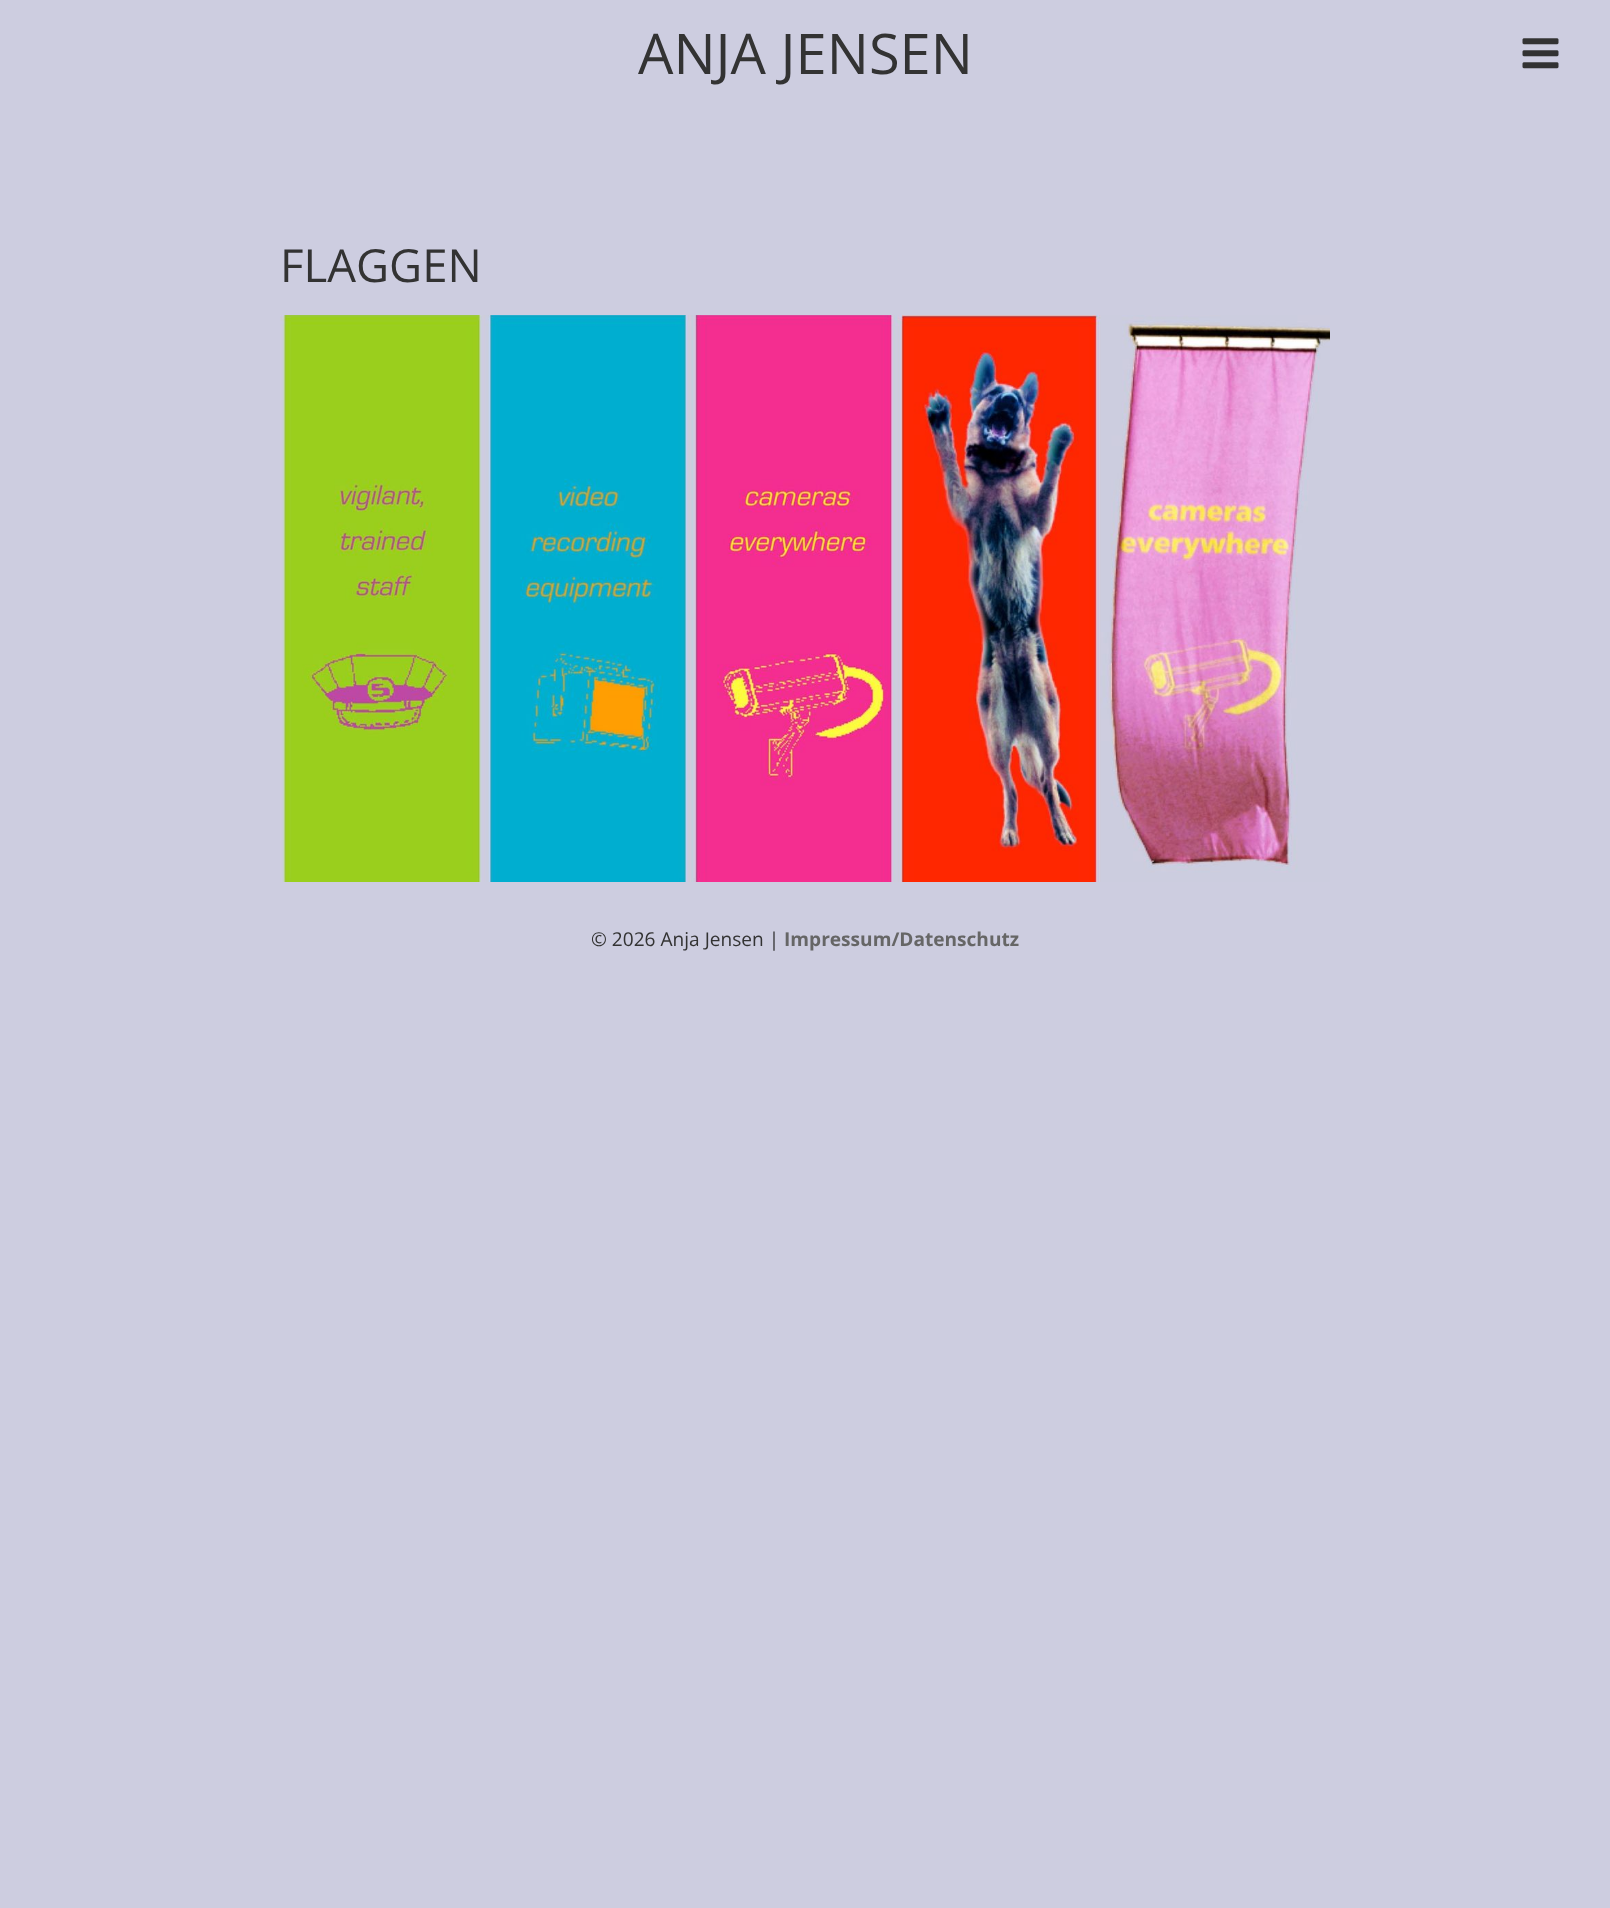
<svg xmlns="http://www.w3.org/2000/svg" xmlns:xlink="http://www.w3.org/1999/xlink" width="1610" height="1908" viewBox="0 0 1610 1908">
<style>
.cls-1{font:56px Open Sans;fill:#333333}
.cls-2{font:45.5px Open Sans;fill:#333333}
.cls-3{font:19.1px Open Sans;fill:#333333}
.cls-4{font:bold 19.1px Open Sans;fill:#666666}
</style>
<rect width="100%" height="100%" fill="#cdcde0"/>
<image xlink:href="image0.png" x="1522" y="38" width="37" height="31"/>
<image xlink:href="image1.png" x="280" y="315" width="1050" height="567"/>
<text class="cls-1" x="638" y="74">ANJA JENSEN</text>
<text class="cls-2" x="280" y="282">FLAGGEN</text>
<text class="cls-3" x="591" y="946">© 2026 Anja Jensen |</text>
<text class="cls-4" x="784" y="946">Impressum/Datenschutz</text>
</svg>
